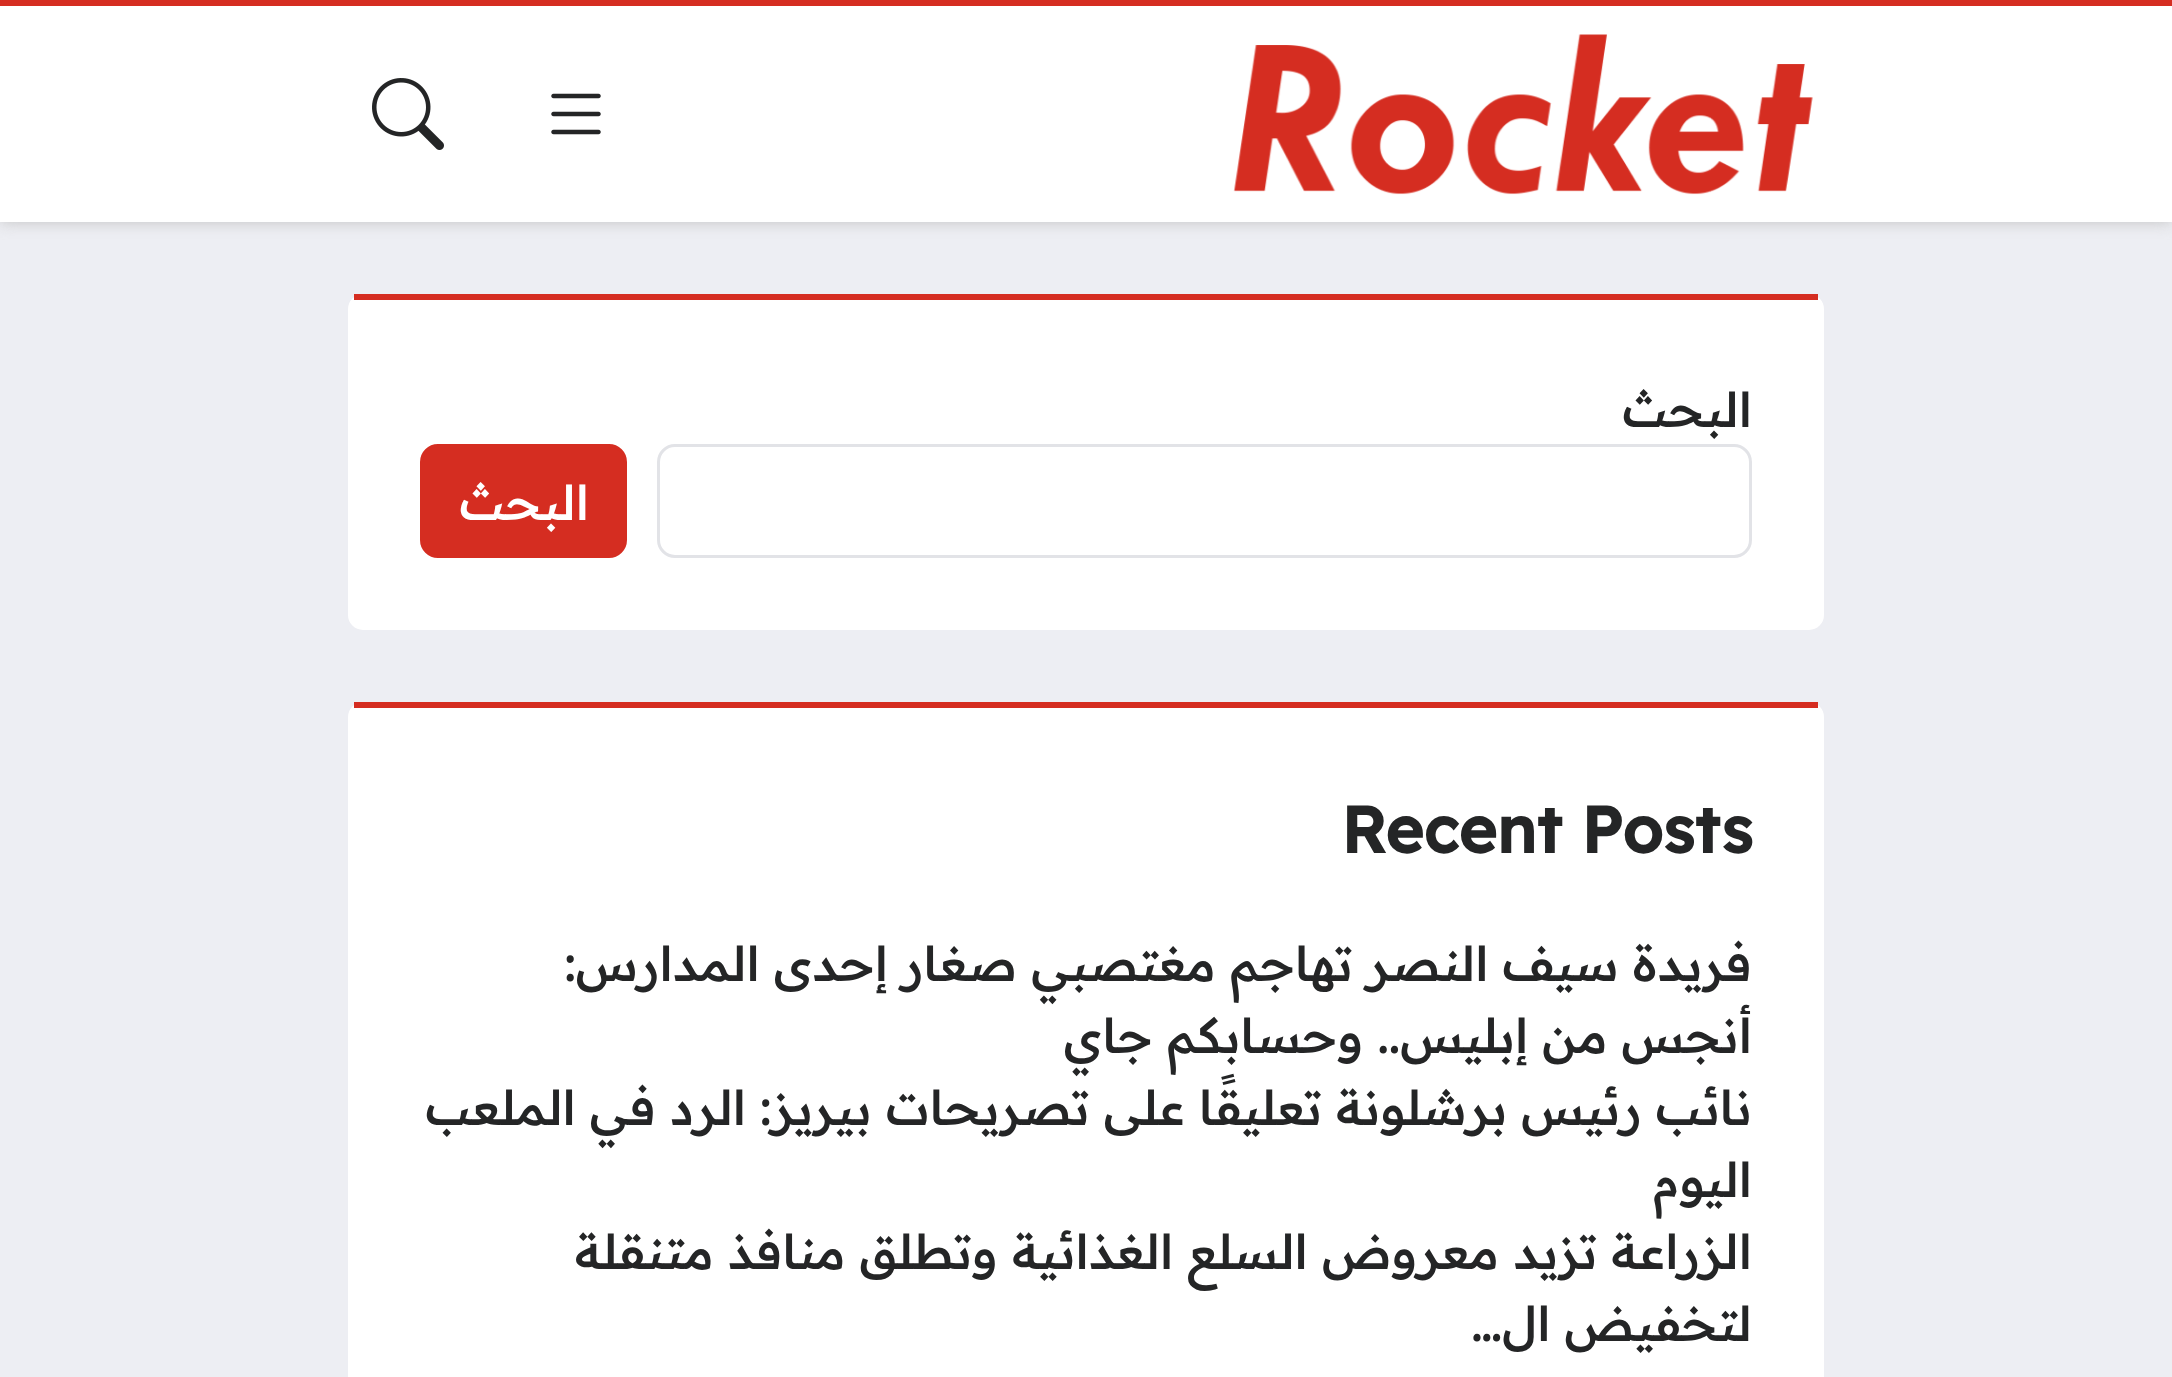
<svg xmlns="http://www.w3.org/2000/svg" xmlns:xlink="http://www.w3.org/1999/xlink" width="2172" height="1377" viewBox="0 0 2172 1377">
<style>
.cls-1{font:500 48px Readex Pro;direction:rtl;fill:#242526}
.cls-2{font:500 48px Readex Pro;direction:rtl;fill:#ffffff}
.cls-3{font:bold 65.25px Readex Pro;fill:#242526}
</style>
<rect width="100%" height="100%" fill="#edeef3"/>
<rect fill="#c3c3c3" filter="blur(7.5px)" x="0" y="0" width="2172" height="222"/>
<rect fill="#d52d21" x="0" y="0" width="2172" height="6"/>
<rect fill="#ffffff" x="0" y="6" width="2172" height="216"/>
<image xlink:href="image0.png" x="1233" y="34" width="580" height="161"/>
<image xlink:href="image1.png" x="551" y="93" width="50" height="42"/>
<image xlink:href="image2.png" x="372" y="78" width="72" height="72"/>
<rect fill="#ffffff" x="348" y="294" width="1476" height="336" rx="15"/>
<rect fill="#d52d21" x="354" y="294" width="1464" height="6"/>
<rect fill="none" stroke="#e2e3e7" stroke-width="3" x="658.5" y="445.5" width="1092" height="111" rx="16.5"/>
<rect fill="#d52d21" stroke="#d52d21" stroke-width="3" x="421.5" y="445.5" width="204" height="111" rx="16.5"/>
<rect fill="#ffffff" x="348" y="702" width="1476" height="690" rx="15"/>
<rect fill="#d52d21" x="354" y="702" width="1464" height="6"/>
<text class="cls-1" x="1752" y="427">البحث</text>
<text class="cls-2" x="589" y="520">البحث</text>
<text class="cls-3" x="1341" y="853">Recent Posts</text>
<text class="cls-1"><tspan x="1752" y="981">فريدة سيف النصر تهاجم مغتصبي صغار إحدى المدارس:</tspan><tspan x="1752" y="1053">أنجس من إبليس.. وحسابكم جاي</tspan><tspan x="1752" y="1125">نائب رئيس برشلونة تعليقًا على تصريحات بيريز: الرد في الملعب</tspan><tspan x="1752" y="1197">اليوم</tspan><tspan x="1752" y="1269">الزراعة تزيد معروض السلع الغذائية وتطلق منافذ متنقلة</tspan><tspan x="1752" y="1341">لتخفيض ال…</tspan></text>
</svg>
